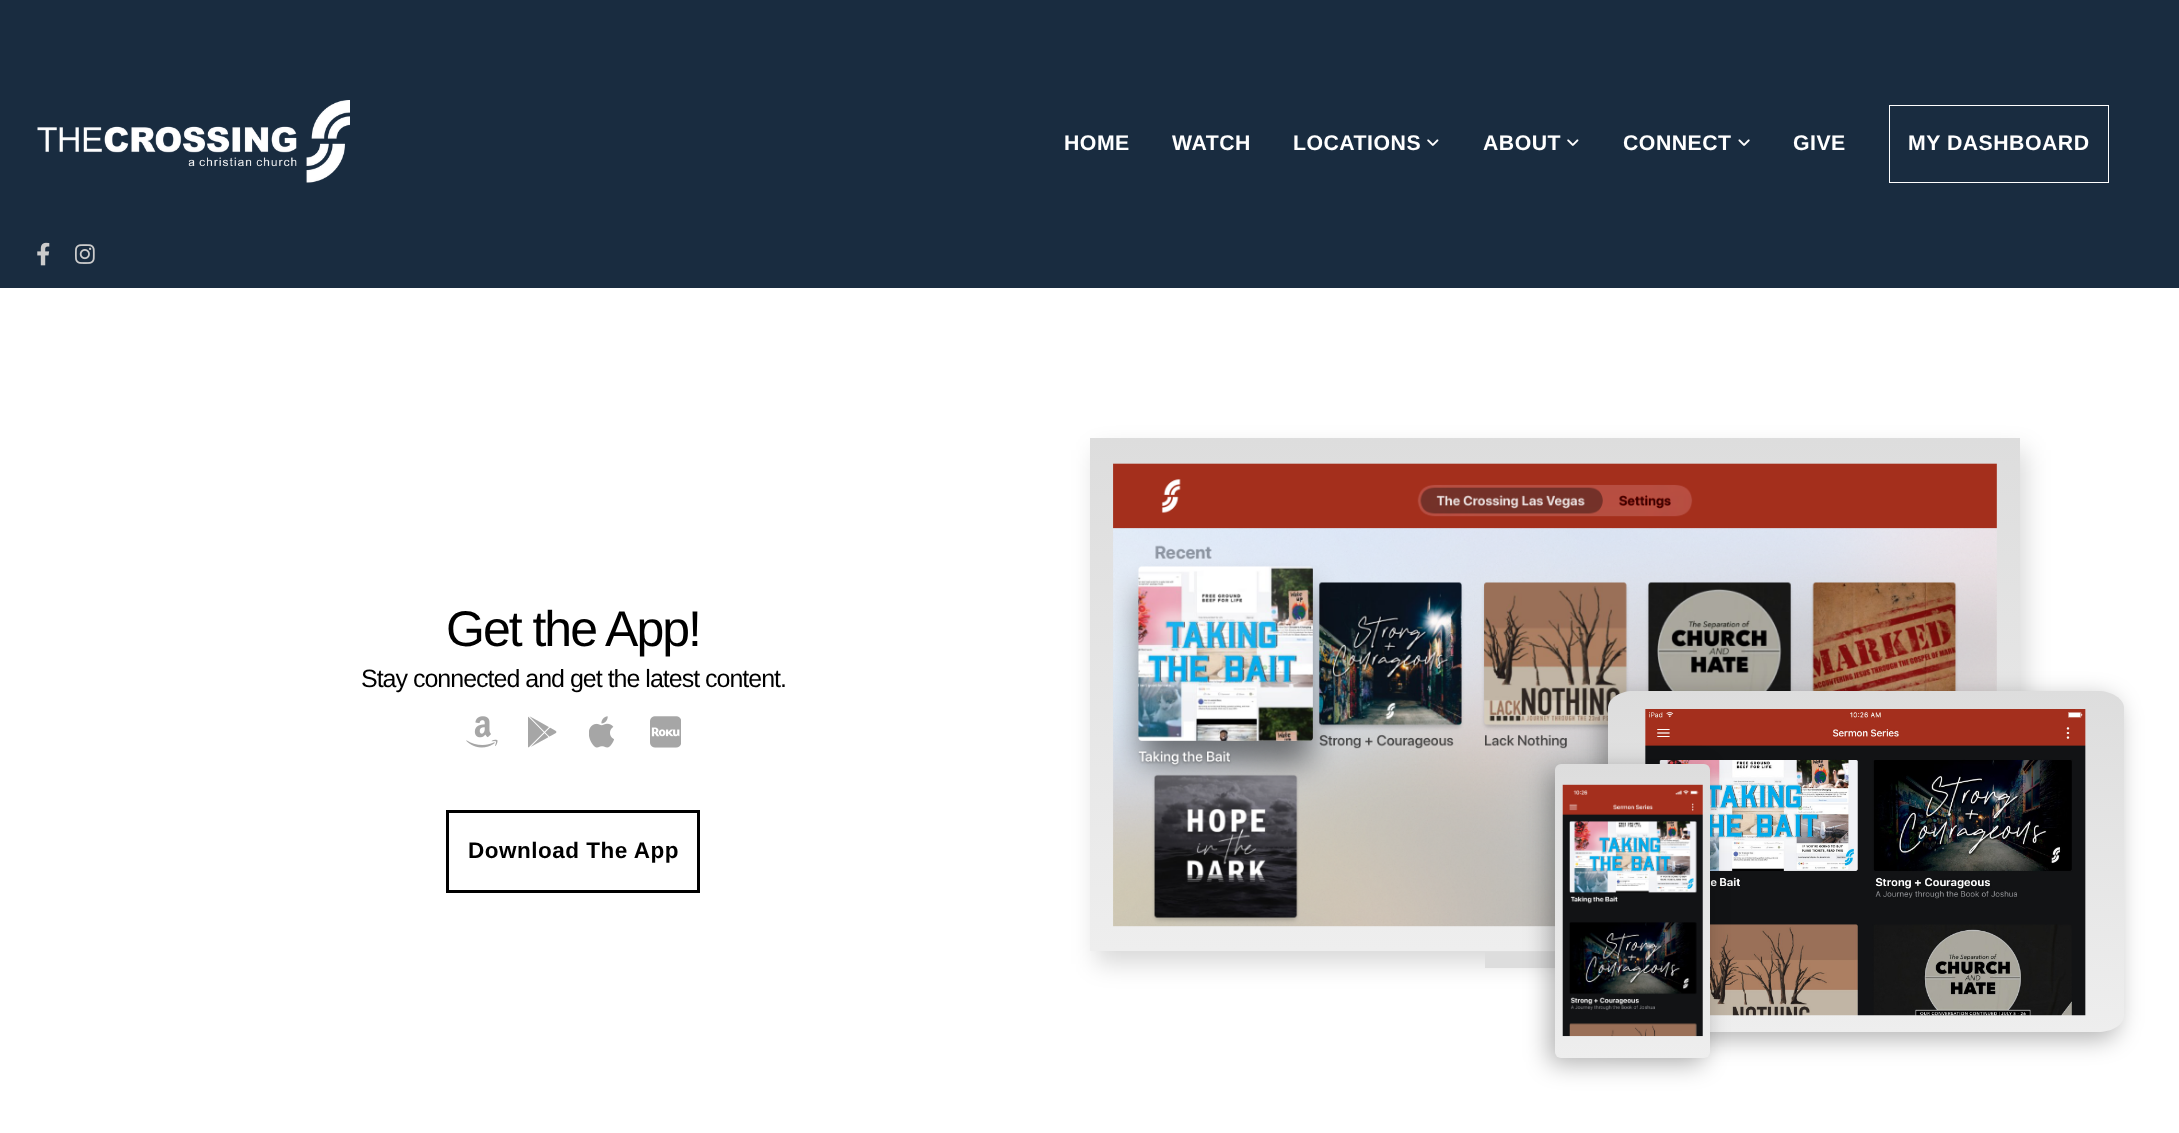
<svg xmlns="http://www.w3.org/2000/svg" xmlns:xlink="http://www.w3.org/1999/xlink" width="2179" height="1133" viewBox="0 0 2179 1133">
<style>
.cls-1{font:bold 21.25px Liberation Sans;letter-spacing:0.5px;fill:#ffffff}
.cls-2{font:50px Liberation Sans;letter-spacing:-2px;fill:#000000}
.cls-3{font:25px Liberation Sans;letter-spacing:-1px;fill:#000000}
.cls-4{font:bold 22.5px Liberation Sans;letter-spacing:0.5px;fill:#000000}
</style>
<defs>
<linearGradient id="g1" gradientUnits="userSpaceOnUse" x1="1555" y1="437" x2="1555" y2="951"><stop offset="0" stop-color="#dddddd"/><stop offset="1" stop-color="#eeeeee"/></linearGradient>
<linearGradient id="g2" gradientUnits="userSpaceOnUse" x1="1866" y1="691" x2="1866" y2="1033"><stop offset="0" stop-color="#dddddd"/><stop offset="1" stop-color="#eeeeee"/></linearGradient>
<linearGradient id="g3" gradientUnits="userSpaceOnUse" x1="1633" y1="764" x2="1633" y2="1058"><stop offset="0" stop-color="#dddddd"/><stop offset="1" stop-color="#eeeeee"/></linearGradient>
</defs>
<rect width="100%" height="100%" fill="#ffffff"/>
<rect fill="#192c40" x="0" y="0" width="2179" height="288"/>
<image xlink:href="image0.png" x="37" y="100" width="313" height="83"/>
<image xlink:href="image1.png" x="1427" y="139" width="12" height="7"/>
<image xlink:href="image1.png" x="1567" y="139" width="12" height="7"/>
<image xlink:href="image2.png" x="1738" y="139" width="12" height="7"/>
<rect fill="none" stroke="#ffffff" x="1889.5" y="105.5" width="219" height="77"/>
<image xlink:href="image3.png" x="37" y="242" width="13" height="24"/>
<image xlink:href="image4.png" x="75" y="244" width="20" height="20"/>
<image xlink:href="image5.png" x="466" y="716" width="32" height="32"/>
<image xlink:href="image6.png" x="528" y="716" width="29" height="32"/>
<image xlink:href="image7.png" x="589" y="716" width="25" height="32"/>
<image xlink:href="image8.png" x="650" y="716" width="31" height="32"/>
<rect fill="none" stroke="#000000" stroke-width="3" x="447.5" y="811.5" width="251" height="80"/>
<rect fill="#000000" fill-opacity="0.15" filter="blur(12.5px)" x="1096" y="450" width="930" height="514"/>
<rect fill="url(#g1)" x="1090" y="438" width="930" height="513"/>
<image xlink:href="image9.png" x="1113" y="463" width="884" height="464"/>
<rect fill="#dddddd" x="1485" y="952" width="70" height="16"/>
<rect fill="#000000" fill-opacity="0.3" filter="blur(12.5px)" x="1601" y="698" width="517" height="341" rx="18"/>
<path fill="url(#g2)" d="M1633 691H2098C2112 691 2124 699 2124 708V1015C2124 1025 2112 1032 2098 1032H1633C1619 1032 1608 1025 1608 1015V708C1608 699 1619 691 1633 691Z"/>
<image xlink:href="image10.png" x="1645" y="709" width="441" height="307"/>
<rect fill="#000000" fill-opacity="0.3" filter="blur(12.5px)" x="1549" y="770" width="155" height="294" rx="8"/>
<rect fill="url(#g3)" x="1555" y="764" width="155" height="294" rx="6"/>
<image xlink:href="image11.png" x="1562" y="784" width="141" height="253"/>
<text class="cls-1" x="1064" y="150">HOME</text>
<text class="cls-1" x="1172" y="150">WATCH</text>
<text class="cls-1" x="1293" y="150">LOCATIONS</text>
<text class="cls-1" x="1483" y="150">ABOUT</text>
<text class="cls-1" x="1623" y="150">CONNECT</text>
<text class="cls-1" x="1793" y="150">GIVE</text>
<text class="cls-1" x="1908" y="150">MY DASHBOARD</text>
<text class="cls-2" x="446" y="646">Get the App!</text>
<text class="cls-3" x="361" y="687">Stay connected and get the latest content.</text>
<text class="cls-4" x="468" y="858">Download The App</text>
</svg>
